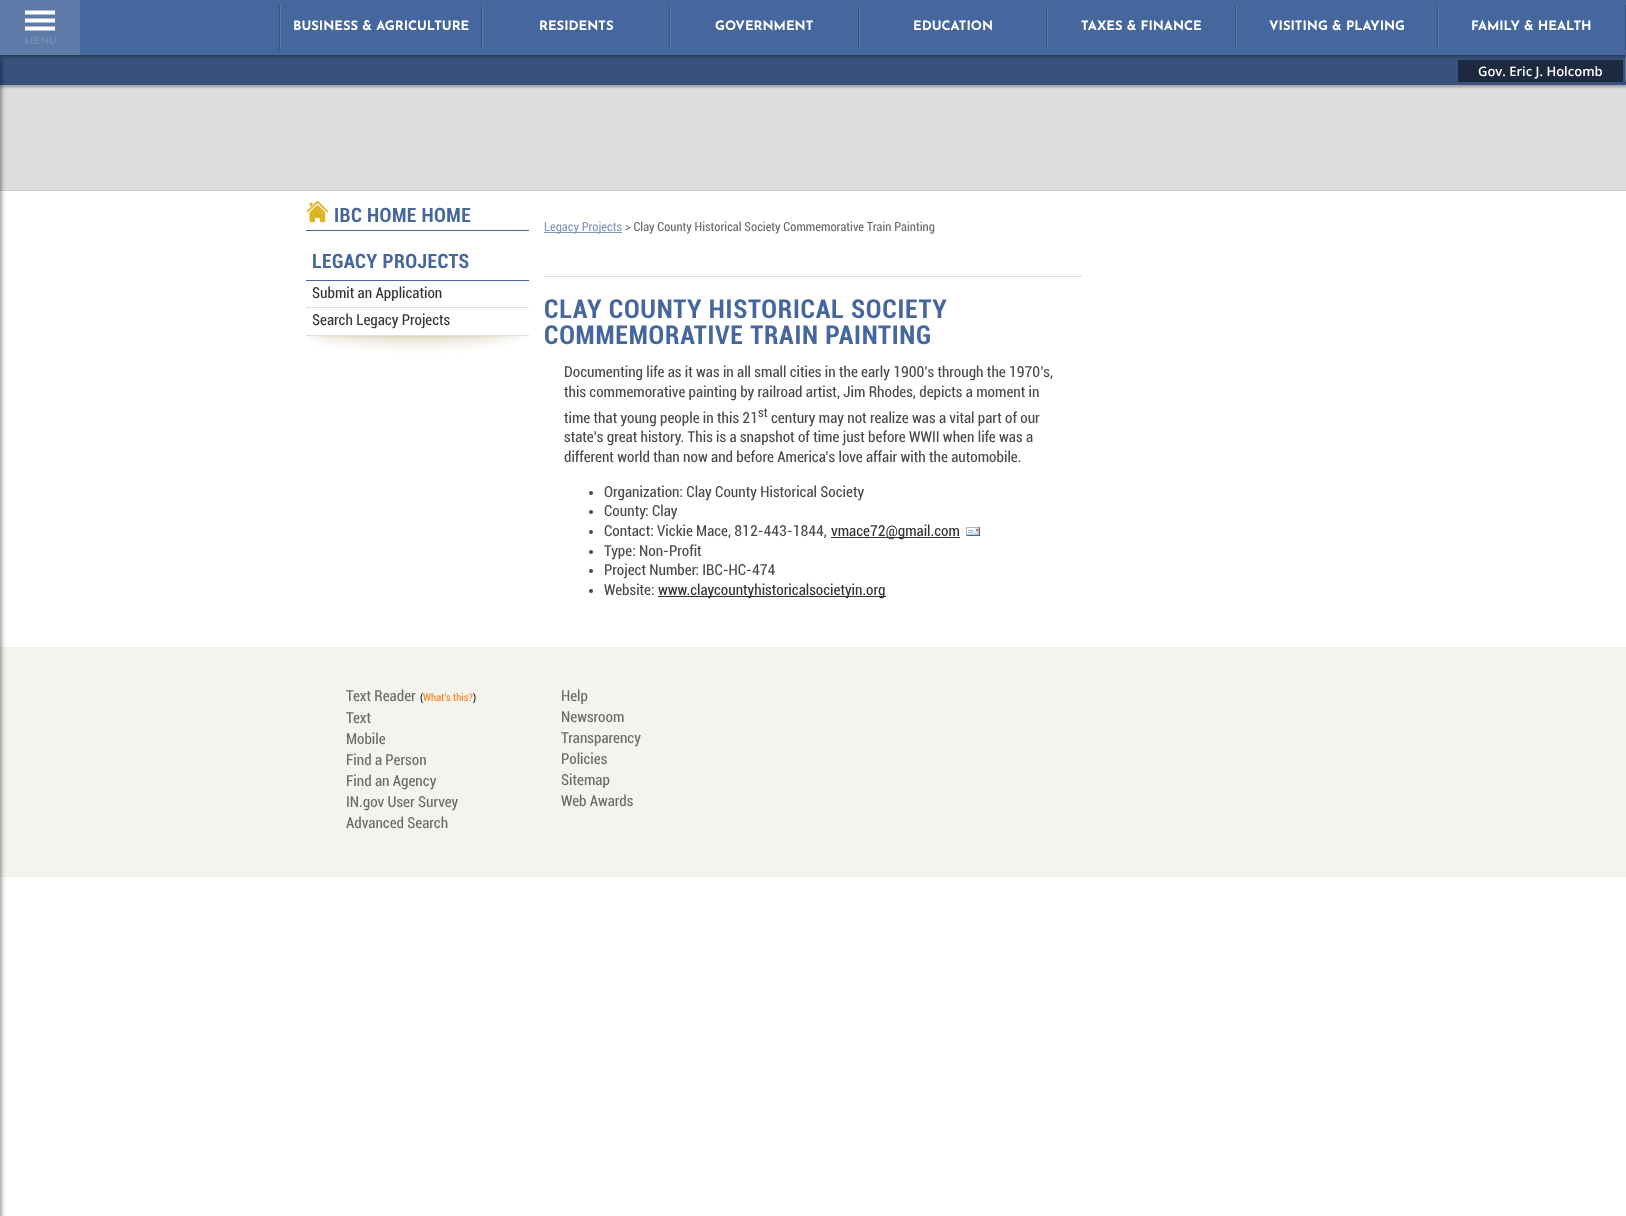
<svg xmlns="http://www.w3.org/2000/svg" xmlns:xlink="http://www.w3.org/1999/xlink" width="1626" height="1216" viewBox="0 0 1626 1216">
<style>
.cls-1{font:bold 13px Josefin Sans;fill:#ffffff}
.cls-2{font:bold 10px Josefin Sans;fill:#748db6}
.cls-3{font:600 13px Open Sans;fill:#ffffff}
.cls-4{font:bold 19.75px Roboto;letter-spacing:0.4px;fill:#46679d}
.cls-5{font:15.1px Roboto;fill:#333333}
.cls-6{font:12.5px Roboto;fill:#8197bc}
.cls-7{font:12.5px Roboto;fill:#6b6a67}
.cls-8{font:bold 26.1px Roboto;letter-spacing:0.75px;fill:#46679d}
.cls-9{font:15.1px Roboto;fill:#4b4a47}
.cls-10{font:13px Roboto;fill:#4b4a47}
.cls-11{font:15.1px Roboto;fill:#6b6a67}
.cls-12{font:10.5px Roboto;fill:#000000}
.cls-13{font:10.5px Roboto;fill:#f78222}
</style>
<rect width="100%" height="100%" fill="#ffffff"/>
<rect fill="#dddddd" x="0" y="85" width="1626" height="105"/>
<rect fill="#000000" fill-opacity="0.3" filter="blur(1.5px)" x="-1" y="55" width="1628" height="32"/>
<rect fill="#38527e" x="0" y="55" width="1626" height="30"/>
<rect fill="#607598" x="1625" y="55" width="1" height="27"/>
<rect fill="#1c293f" x="1458" y="60" width="165" height="22"/>
<rect fill="#000000" fill-opacity="0.3" filter="blur(1.5px)" x="-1" y="0" width="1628" height="57"/>
<rect fill="#46679d" x="80" y="0" width="1546" height="55"/>
<rect fill="#38527e" x="279" y="5" width="1" height="45"/>
<rect fill="#38527e" x="481" y="5" width="1" height="45"/>
<rect fill="#5976a7" x="280" y="5" width="1" height="45"/>
<rect fill="#38527e" x="669" y="5" width="1" height="45"/>
<rect fill="#5976a7" x="482" y="5" width="1" height="45"/>
<rect fill="#38527e" x="858" y="5" width="1" height="45"/>
<rect fill="#5976a7" x="670" y="5" width="1" height="45"/>
<rect fill="#38527e" x="1046" y="5" width="1" height="45"/>
<rect fill="#5976a7" x="859" y="5" width="1" height="45"/>
<rect fill="#38527e" x="1235" y="5" width="1" height="45"/>
<rect fill="#5976a7" x="1047" y="5" width="1" height="45"/>
<rect fill="#38527e" x="1437" y="5" width="1" height="45"/>
<rect fill="#5976a7" x="1236" y="5" width="1" height="45"/>
<rect fill="#38527e" x="1625" y="5" width="1" height="45"/>
<rect fill="#5976a7" x="1438" y="5" width="1" height="45"/>
<rect fill="#5d7aa9" x="0" y="0" width="80" height="55"/>
<image xlink:href="image0.png" x="25" y="10" width="30" height="21"/>
<rect fill="#cccccc" x="0" y="190" width="1626" height="1"/>
<rect fill="#f5f3ed" x="0" y="647" width="1626" height="230"/>
<rect fill="#000000" fill-opacity="0.5" filter="blur(2.5px)" x="-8" y="59" width="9" height="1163"/>
<image xlink:href="image1.png" x="306" y="336" width="223" height="17"/>
<rect fill="#46679d" x="306" y="230" width="223" height="1"/>
<image xlink:href="image2.png" x="306" y="200" width="22" height="23"/>
<rect fill="#46679d" x="306" y="280" width="223" height="1"/>
<rect fill="#e1dfdb" x="306" y="307" width="223" height="1"/>
<rect fill="#e1dfdb" x="306" y="335" width="223" height="1"/>
<rect fill="#e1dfdb" x="544" y="276" width="538" height="1"/>
<rect fill="#8197bc" x="544" y="232" width="78" height="1"/>
<circle fill="#4b4a47" cx="591" cy="493" r="2"/>
<circle fill="#4b4a47" cx="591" cy="512" r="2"/>
<circle fill="#4b4a47" cx="591" cy="532" r="2"/>
<rect fill="#333333" x="831" y="537" width="129" height="1"/>
<image xlink:href="image3.png" x="966" y="527" width="14" height="9"/>
<circle fill="#4b4a47" cx="591" cy="552" r="2"/>
<circle fill="#4b4a47" cx="591" cy="571" r="2"/>
<circle fill="#4b4a47" cx="591" cy="591" r="2"/>
<rect fill="#333333" x="658" y="596" width="228" height="1"/>
<text class="cls-1" x="293" y="30">BUSINESS &amp; AGRICULTURE</text>
<text class="cls-1" x="539" y="30">RESIDENTS</text>
<text class="cls-1" x="715" y="30">GOVERNMENT</text>
<text class="cls-1" x="913" y="30">EDUCATION</text>
<text class="cls-1" x="1081" y="30">TAXES &amp; FINANCE</text>
<text class="cls-1" x="1269" y="30">VISITING &amp; PLAYING</text>
<text class="cls-1" x="1471" y="30">FAMILY &amp; HEALTH</text>
<text class="cls-2" x="24" y="44">MENU</text>
<text class="cls-3" x="1478" y="76">Gov. Eric J. Holcomb</text>
<text class="cls-4" x="334" y="222">IBC HOME HOME</text>
<text class="cls-4" x="312" y="268">LEGACY PROJECTS</text>
<text class="cls-5"><tspan x="312" y="298">Submit an Application</tspan><tspan x="312" y="325">Search Legacy Projects</tspan></text>
<text class="cls-6" x="544" y="231">Legacy Projects</text>
<text class="cls-7" x="625" y="231">&gt; Clay County Historical Society Commemorative Train Painting</text>
<text class="cls-8"><tspan x="544" y="318">CLAY COUNTY HISTORICAL SOCIETY</tspan><tspan x="544" y="344">COMMEMORATIVE TRAIN PAINTING</tspan></text>
<text class="cls-9"><tspan x="564" y="377">Documenting life as it was in all small cities in the early 1900’s through the 1970’s,</tspan><tspan x="564" y="397">this commemorative painting by railroad artist, Jim Rhodes, depicts a moment in</tspan><tspan x="564" y="423">time that young people in this 21</tspan></text>
<text class="cls-10" x="758" y="417">st</text>
<text class="cls-9" x="771" y="423">century may not realize was a vital part of our</text>
<text class="cls-9"><tspan x="564" y="442">state’s great history. This is a snapshot of time just before WWII when life was a</tspan><tspan x="564" y="462">different world than now and before America’s love affair with the automobile.</tspan></text>
<text class="cls-9"><tspan x="604" y="497">Organization: Clay County Historical Society</tspan><tspan x="604" y="516">County: Clay</tspan><tspan x="604" y="536">Contact: Vickie Mace, 812-443-1844,</tspan></text>
<text class="cls-5" x="831" y="536">vmace72@gmail.com</text>
<text class="cls-9"><tspan x="604" y="556">Type: Non-Profit</tspan><tspan x="604" y="575">Project Number: IBC-HC-474</tspan><tspan x="604" y="595">Website:</tspan></text>
<text class="cls-5" x="658" y="595">www.claycountyhistoricalsocietyin.org</text>
<text class="cls-11" x="346" y="701">Text Reader</text>
<text class="cls-12" x="420" y="701">(</text>
<text class="cls-13" x="423" y="701">What's this?</text>
<text class="cls-12" x="473" y="701">)</text>
<text class="cls-11"><tspan x="346" y="723">Text</tspan><tspan x="346" y="744">Mobile</tspan><tspan x="346" y="765">Find a Person</tspan><tspan x="346" y="786">Find an Agency</tspan><tspan x="346" y="807">IN.gov User Survey</tspan><tspan x="346" y="828">Advanced Search</tspan></text>
<text class="cls-11"><tspan x="561" y="701">Help</tspan><tspan x="561" y="722">Newsroom</tspan><tspan x="561" y="743">Transparency</tspan><tspan x="561" y="764">Policies</tspan><tspan x="561" y="785">Sitemap</tspan><tspan x="561" y="806">Web Awards</tspan></text>
</svg>
